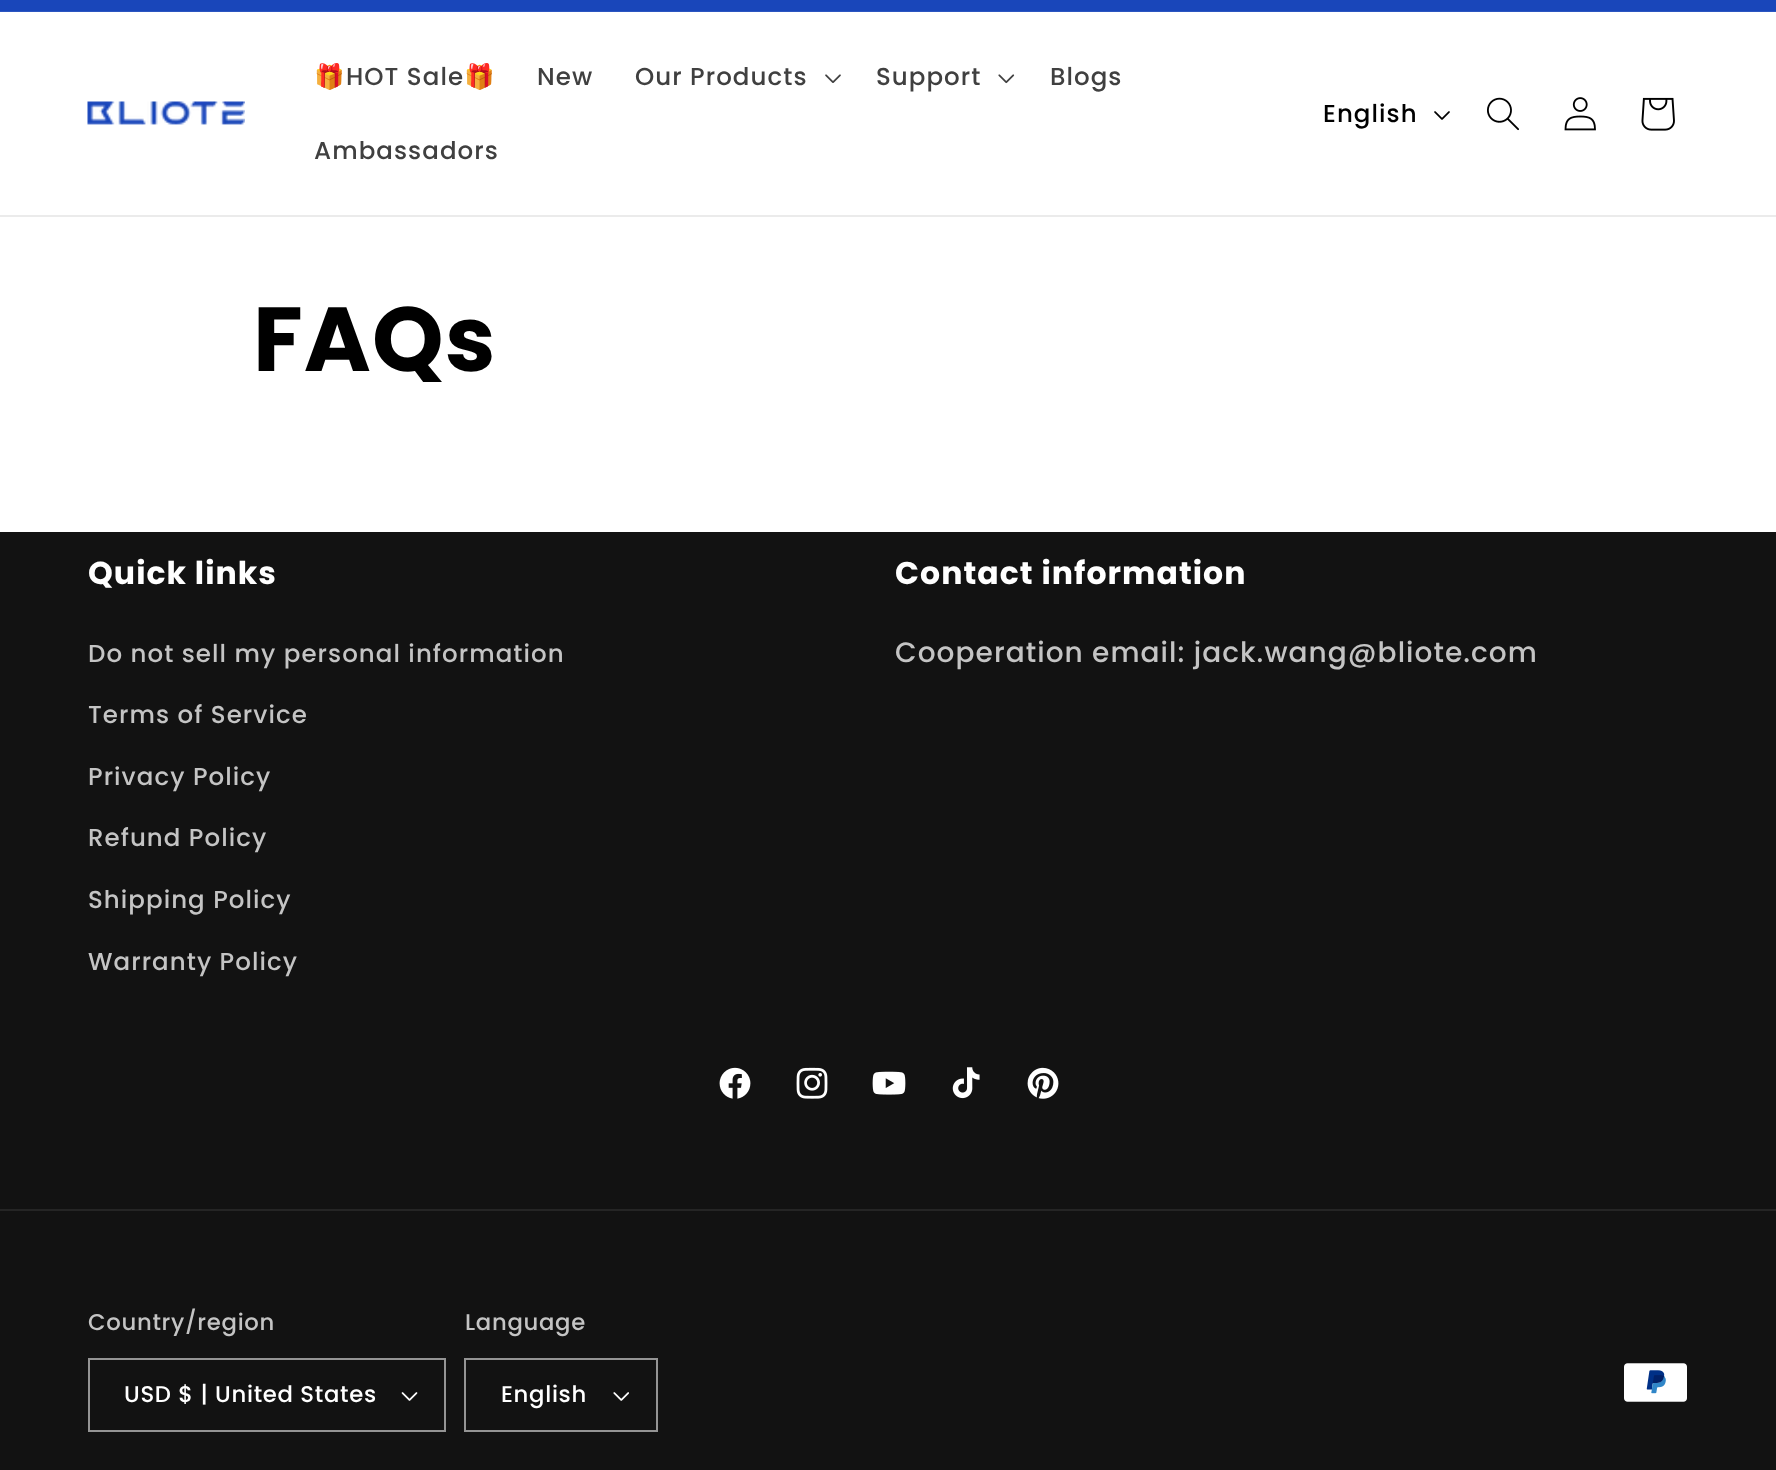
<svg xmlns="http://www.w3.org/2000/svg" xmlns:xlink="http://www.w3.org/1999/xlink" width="1776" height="1470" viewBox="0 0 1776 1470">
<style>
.cls-1{font:24.5px Noto Color Emoji;letter-spacing:1.05px;fill:#404040}
.cls-2{font:500 24.5px Poppins;letter-spacing:1.05px;fill:#404040}
.cls-3{font:500 24.5px Poppins;letter-spacing:1.05px;fill:#000000}
.cls-4{font:bold 91px Poppins;letter-spacing:1.05px;fill:#000000}
.cls-5{font:bold 31.5px Poppins;letter-spacing:1.05px;fill:#ffffff}
.cls-6{font:500 24.5px Poppins;letter-spacing:1.05px;fill:#c4c4c4}
.cls-7{font:500 28px Poppins;letter-spacing:1.05px;fill:#c4c4c4}
.cls-8{font:500 22.75px Poppins;letter-spacing:0.7px;fill:#c4c4c4}
.cls-9{font:500 22.75px Poppins;letter-spacing:0.7px;fill:#ffffff}
</style>
<rect width="100%" height="100%" fill="#ffffff"/>
<rect fill="#1946ba" x="0" y="0" width="1776" height="11"/>
<rect fill="#2b55c0" x="0" y="11" width="1776" height="1"/>
<rect fill="#ebebeb" x="0" y="215" width="1776" height="2"/>
<image xlink:href="image0.png" x="87" y="101" width="158" height="24"/>
<image xlink:href="image1.png" x="825" y="74" width="16" height="9"/>
<image xlink:href="image2.png" x="998" y="74" width="17" height="10"/>
<image xlink:href="image3.png" x="1434" y="111" width="16" height="9"/>
<image xlink:href="image4.png" x="1487" y="97" width="32" height="34"/>
<image xlink:href="image5.png" x="1564" y="97" width="32" height="34"/>
<image xlink:href="image6.png" x="1641" y="97" width="34" height="34"/>
<rect fill="#121212" x="0" y="532" width="1776" height="938"/>
<image xlink:href="image7.png" x="719" y="1067" width="32" height="32"/>
<image xlink:href="image8.png" x="796" y="1067" width="32" height="32"/>
<image xlink:href="image9.png" x="872" y="1071" width="34" height="24"/>
<image xlink:href="image10.png" x="952" y="1067" width="28" height="32"/>
<image xlink:href="image11.png" x="1027" y="1067" width="32" height="32"/>
<rect fill="#252525" x="0" y="1209" width="1776" height="2"/>
<image xlink:href="image12.png" x="401" y="1392" width="17" height="9"/>
<rect fill="none" stroke="#949494" stroke-width="2" x="89" y="1359" width="356" height="72"/>
<image xlink:href="image13.png" x="613" y="1392" width="16" height="9"/>
<rect fill="none" stroke="#949494" stroke-width="2" x="465" y="1359" width="192" height="72"/>
<image xlink:href="image14.png" x="1624" y="1363" width="63" height="39"/>
<text class="cls-1" x="314" y="85">🎁</text>
<text class="cls-2" x="346" y="85">HOT Sale</text>
<text class="cls-1" x="464" y="85">🎁</text>
<text class="cls-2" x="537" y="85">New</text>
<text class="cls-2" x="635" y="85">Our Products</text>
<text class="cls-2" x="876" y="85">Support</text>
<text class="cls-2" x="1050" y="85">Blogs</text>
<text class="cls-2" x="314" y="159">Ambassadors</text>
<text class="cls-3" x="1323" y="122">English</text>
<text class="cls-4" x="253" y="371">FAQs</text>
<text class="cls-5" x="88" y="584">Quick links</text>
<text class="cls-6" x="88" y="662">Do not sell my personal information</text>
<text class="cls-6" x="88" y="723">Terms of Service</text>
<text class="cls-6" x="88" y="785">Privacy Policy</text>
<text class="cls-6" x="88" y="846">Refund Policy</text>
<text class="cls-6" x="88" y="908">Shipping Policy</text>
<text class="cls-6" x="88" y="970">Warranty Policy</text>
<text class="cls-5" x="895" y="584">Contact information</text>
<text class="cls-7" x="895" y="662">Cooperation email: jack.wang@bliote.com</text>
<text class="cls-8" x="88" y="1330">Country/region</text>
<text class="cls-9" x="124" y="1402">USD $ | United States</text>
<text class="cls-8" x="465" y="1330">Language</text>
<text class="cls-9" x="501" y="1402">English</text>
</svg>
